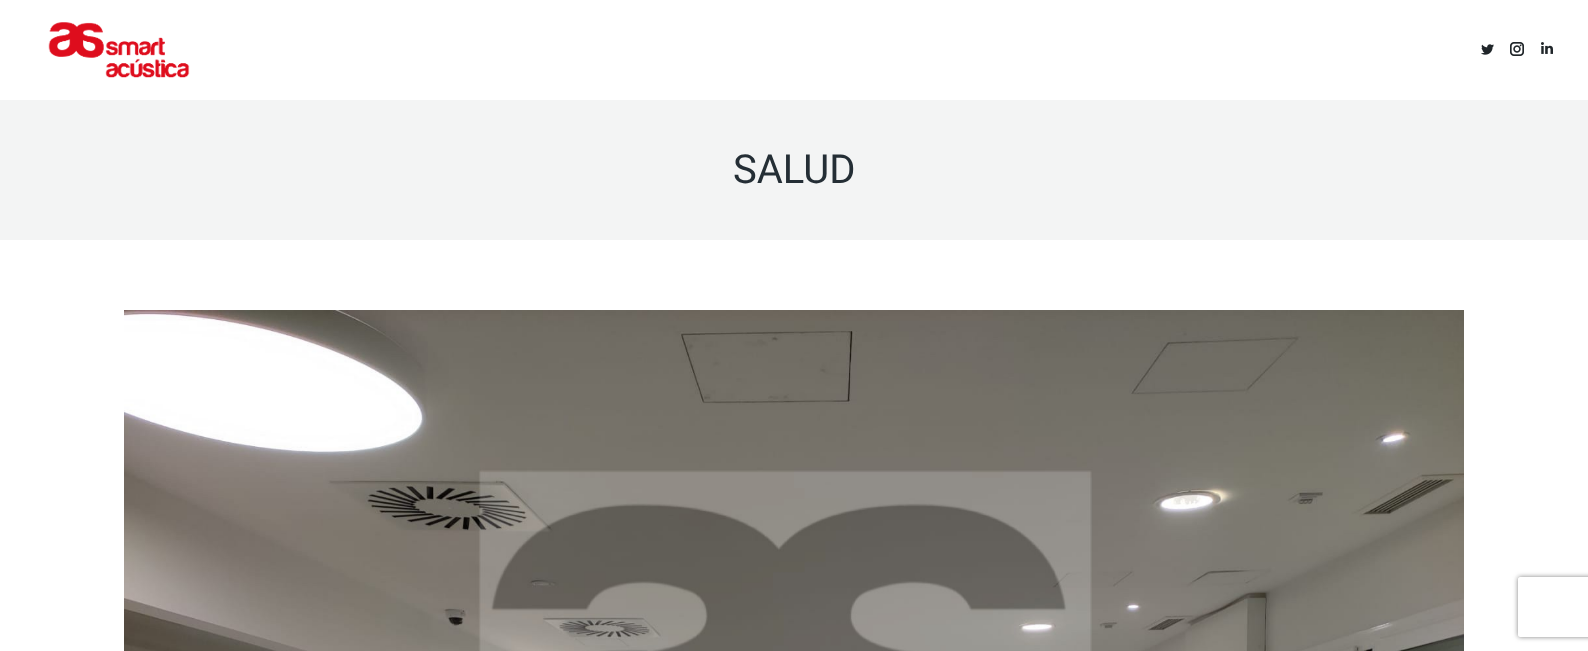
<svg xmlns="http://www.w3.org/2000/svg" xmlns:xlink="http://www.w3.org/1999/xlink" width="1588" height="651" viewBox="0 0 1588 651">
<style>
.cls-1{font:40px Roboto;fill:#242e35}
</style>
<defs>
<clipPath id="clip1"><path d="M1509 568H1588V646H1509ZM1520 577H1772C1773 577 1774 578 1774 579V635C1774 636 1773 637 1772 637H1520C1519 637 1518 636 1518 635V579C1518 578 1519 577 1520 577Z" clip-rule="evenodd"/></clipPath>
</defs>
<rect width="100%" height="100%" fill="#ffffff"/>
<image xlink:href="image0.png" x="48" y="22" width="142" height="56"/>
<image xlink:href="image1.png" x="1481" y="44" width="13" height="11"/>
<image xlink:href="image2.png" x="1510" y="42" width="14" height="14"/>
<image xlink:href="image3.png" x="1541" y="42" width="12" height="12"/>
<rect fill="#f3f4f4" x="0" y="100" width="1588" height="140"/>
<image xlink:href="image4.png" x="124" y="310" width="1340" height="341"/>
<g clip-path="url(#clip1)">
<rect fill="#808080" filter="blur(2.5px)" x="1518" y="577" width="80" height="60" rx="2"/>
</g>
<text class="cls-1" x="733" y="183">SALUD</text>
</svg>
